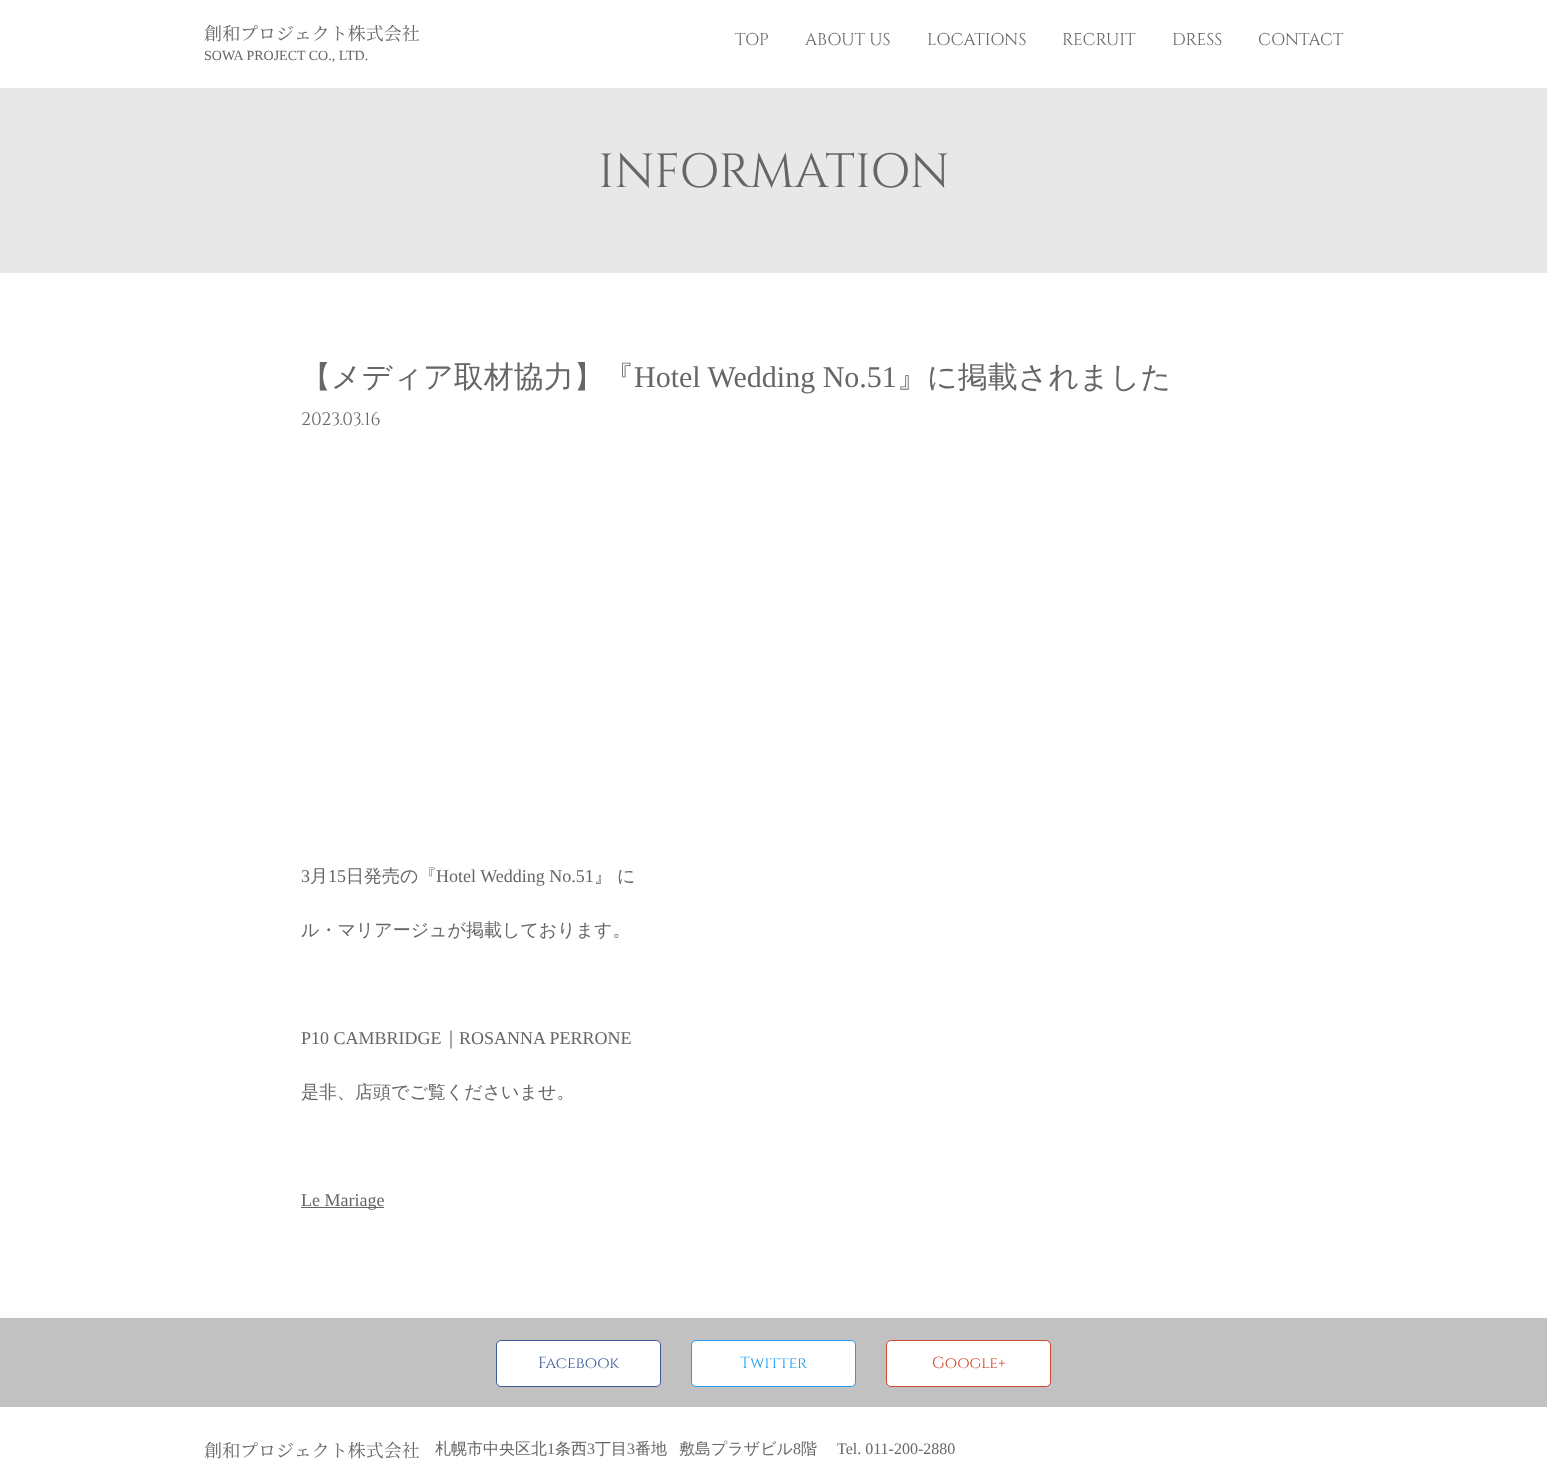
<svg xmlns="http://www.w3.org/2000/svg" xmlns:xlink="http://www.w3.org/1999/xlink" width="1547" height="1480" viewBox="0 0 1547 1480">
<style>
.cls-1{font:18px Noto Serif CJK JP;fill:#666666}
.cls-2{font:14px Liberation Serif;fill:#666666}
.cls-3{font:17px Cinzel;fill:#666666}
.cls-4{font:48px Cinzel;fill:#666666}
.cls-5{font:500 30px WenQuanYi Zen Hei;fill:#666666}
.cls-6{font:30px Liberation Serif;fill:#666666}
.cls-7{font:18px Cinzel;fill:#666666}
.cls-8{font:18px Liberation Serif;fill:#666666}
.cls-9{font:500 18px WenQuanYi Zen Hei;fill:#666666}
.cls-10{font:16px Cinzel;fill:#3c5a96}
.cls-11{font:16px Cinzel;fill:#1d9eef}
.cls-12{font:16px Cinzel;fill:#d14832}
.cls-13{font:500 16px WenQuanYi Zen Hei;fill:#666666}
.cls-14{font:16px Liberation Serif;fill:#666666}
</style>
<rect width="100%" height="100%" fill="#ffffff"/>
<rect fill="#e8e8e8" x="0" y="88" width="1547" height="185"/>
<rect fill="#666666" x="301" y="1207" width="83" height="1"/>
<rect fill="#c1c1c1" x="0" y="1318" width="1547" height="89"/>
<rect fill="#ffffff" stroke="#3c5a96" x="496.5" y="1340.5" width="164" height="46" rx="4.5"/>
<rect fill="#ffffff" stroke="#1d9eef" x="691.5" y="1340.5" width="164" height="46" rx="4.5"/>
<rect fill="#ffffff" stroke="#d14832" x="886.5" y="1340.5" width="164" height="46" rx="4.5"/>
<text class="cls-1" x="204" y="40">創和プロジェクト株式会社</text>
<text class="cls-2" x="204" y="60">SOWA PROJECT CO., LTD.</text>
<text class="cls-3" x="735" y="45">TOP</text>
<text class="cls-3" x="805" y="45">ABOUT US</text>
<text class="cls-3" x="927" y="45">LOCATIONS</text>
<text class="cls-3" x="1062" y="45">RECRUIT</text>
<text class="cls-3" x="1172" y="45">DRESS</text>
<text class="cls-3" x="1258" y="45">CONTACT</text>
<text class="cls-4" x="598" y="187">INFORMATION</text>
<text class="cls-5" x="301" y="387">【メディア取材協力】『</text>
<text class="cls-6" x="634" y="387">Hotel Wedding No.51</text>
<text class="cls-5" x="897" y="387">』に掲載されました</text>
<text class="cls-7" x="301" y="425">2023.03.16</text>
<text class="cls-8" x="301" y="882">3</text>
<text class="cls-9" x="310" y="882">月</text>
<text class="cls-8" x="328" y="882">15</text>
<text class="cls-9" x="346" y="882">日発売の『</text>
<text class="cls-8" x="436" y="882">Hotel Wedding No.51</text>
<text class="cls-9" x="594" y="882">』</text>
<text class="cls-9" x="617" y="882">に</text>
<text class="cls-9" x="301" y="936">ル・マリアージュが掲載しております。</text>
<text class="cls-8" x="301" y="1044">P10 CAMBRIDGE</text>
<text class="cls-9" x="442" y="1044">｜</text>
<text class="cls-8" x="459" y="1044">ROSANNA PERRONE</text>
<text class="cls-9" x="301" y="1098">是非、店頭でご覧くださいませ。</text>
<text class="cls-8" x="301" y="1206">Le Mariage</text>
<text class="cls-10" x="538" y="1368">Facebook</text>
<text class="cls-11" x="740" y="1368">Twitter</text>
<text class="cls-12" x="932" y="1368">Google+</text>
<text class="cls-1" x="204" y="1457">創和プロジェクト株式会社</text>
<text class="cls-13" x="435" y="1454">札幌市中央区北</text>
<text class="cls-14" x="547" y="1454">1</text>
<text class="cls-13" x="555" y="1454">条西</text>
<text class="cls-14" x="587" y="1454">3</text>
<text class="cls-13" x="595" y="1454">丁目</text>
<text class="cls-14" x="627" y="1454">3</text>
<text class="cls-13" x="635" y="1454">番地</text>
<text class="cls-13" x="679" y="1454">敷島プラザビル</text>
<text class="cls-14" x="793" y="1454">8</text>
<text class="cls-13" x="801" y="1454">階</text>
<text class="cls-14" x="837" y="1454">Tel. 011-200-2880</text>
</svg>
